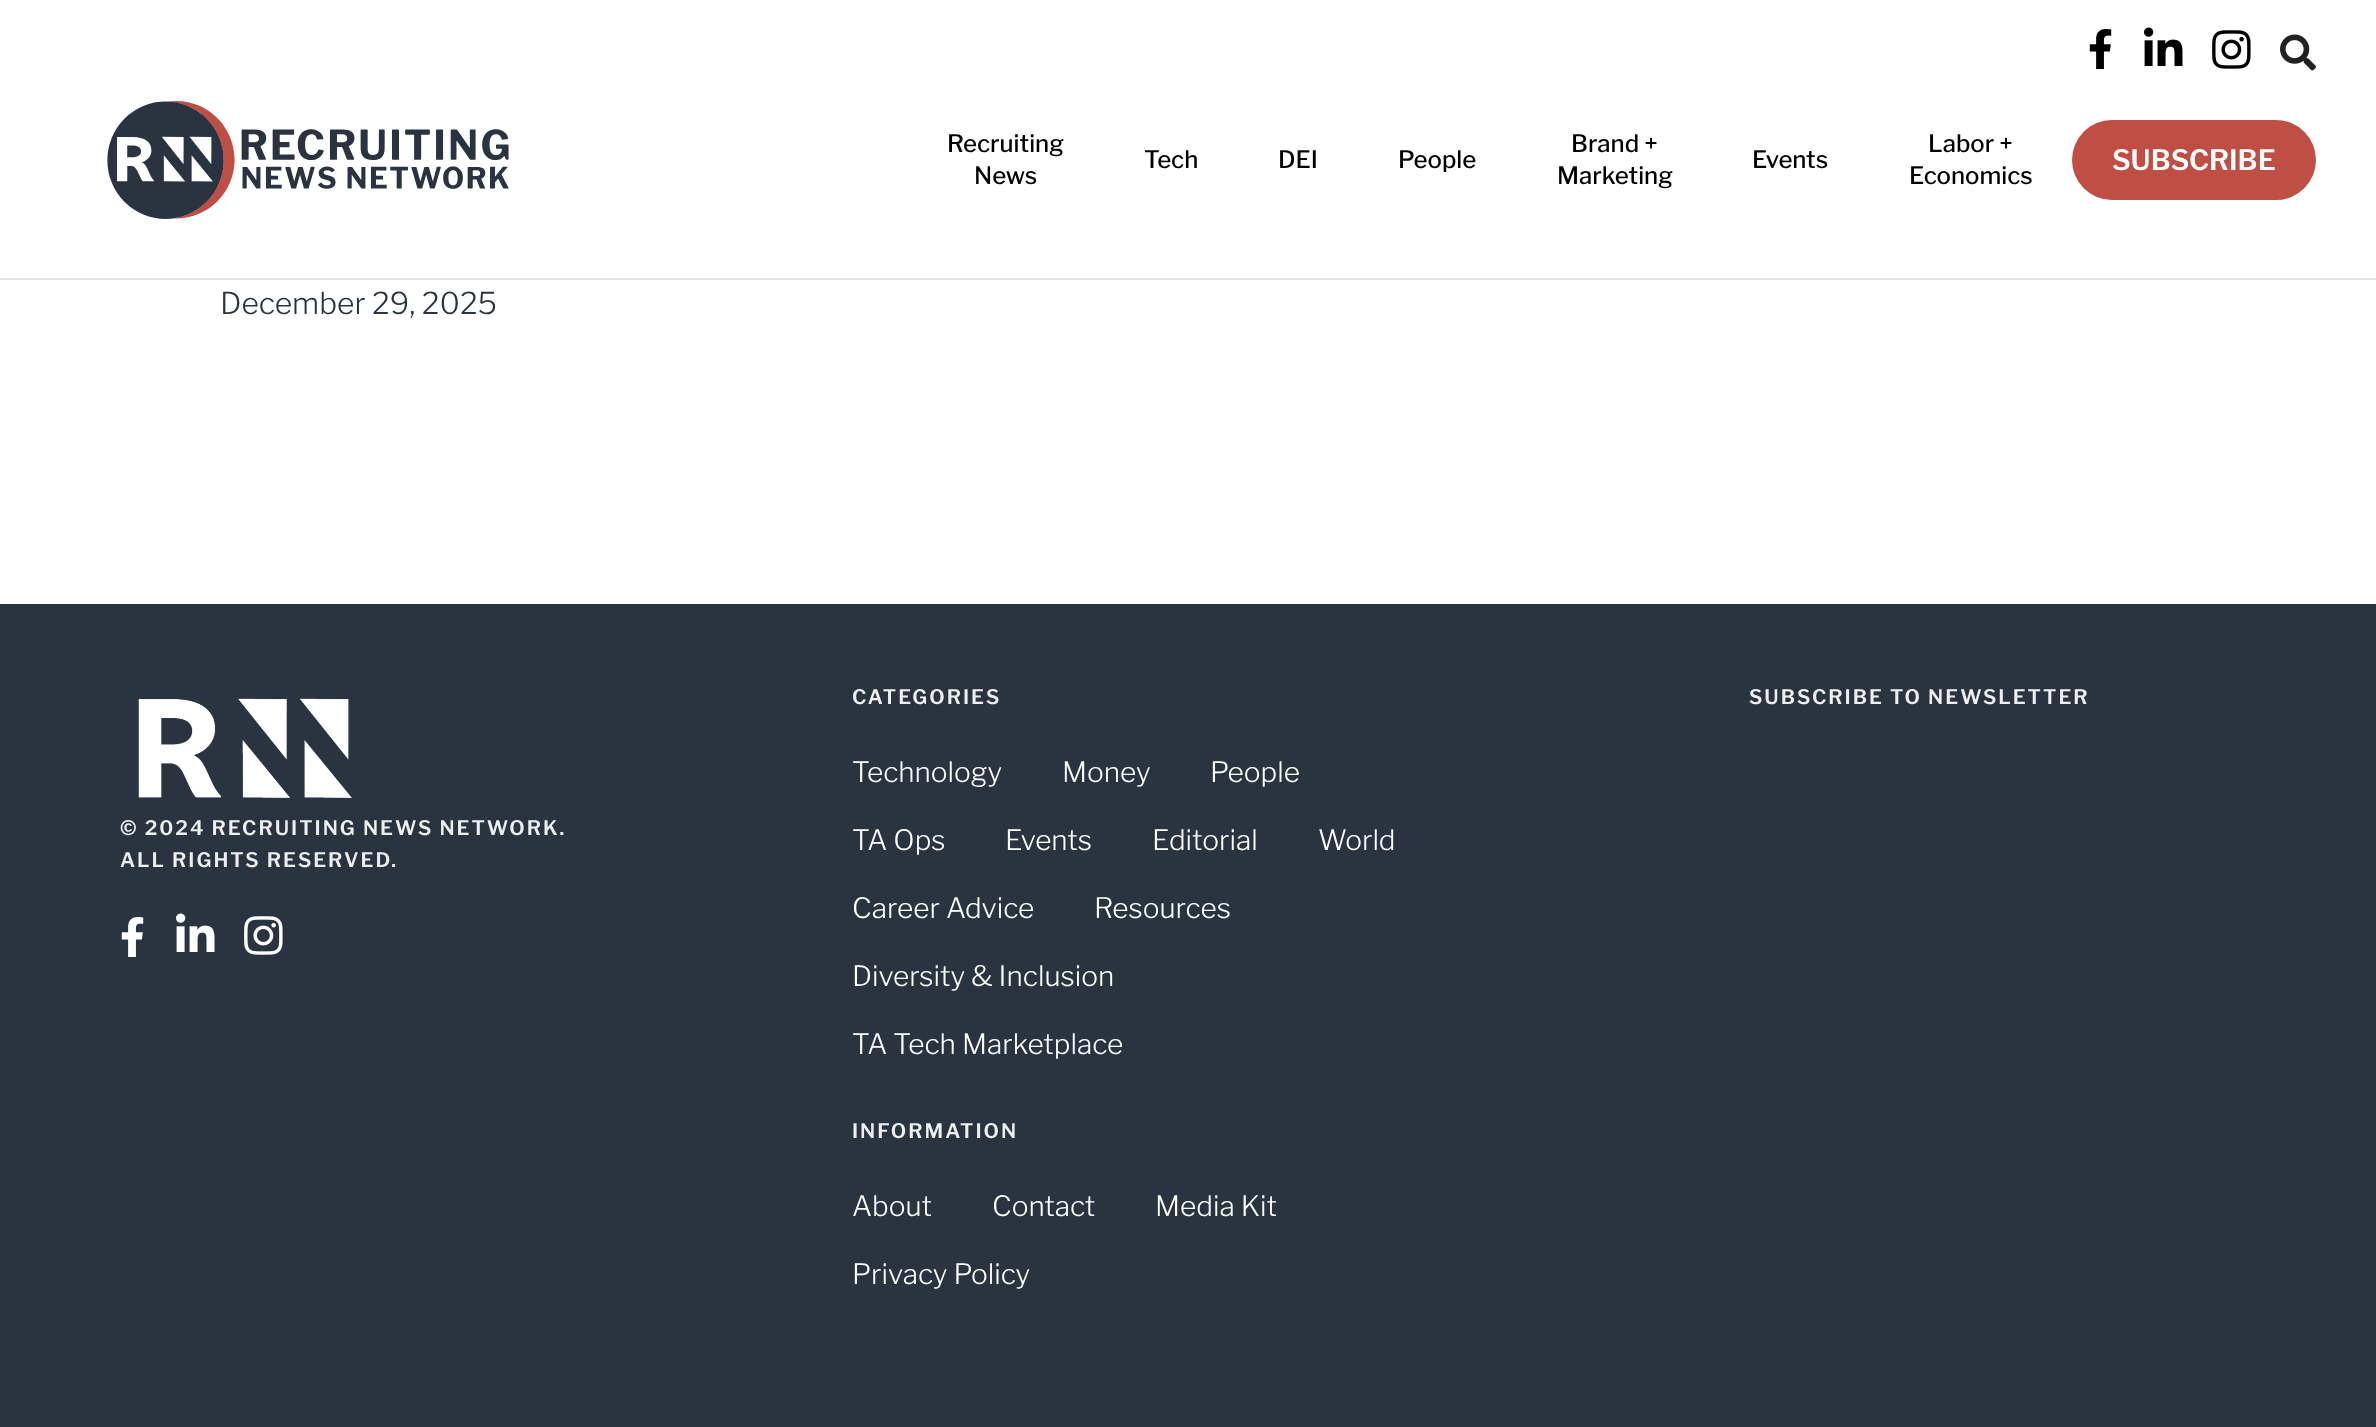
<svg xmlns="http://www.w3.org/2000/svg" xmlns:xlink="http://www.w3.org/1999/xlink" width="2376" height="1427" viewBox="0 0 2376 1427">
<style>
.cls-1{font:500 24px Libre Franklin;fill:#000000}
.cls-2{font:600 28px Libre Franklin;fill:#ffffff}
.cls-3{font:300 30px Libre Franklin;fill:#2a3340}
.cls-4{font:600 20px Libre Franklin;letter-spacing:2px;fill:#efefef}
.cls-5{font:300 28px Libre Franklin;fill:#ffffff}
</style>
<rect width="100%" height="100%" fill="#ffffff"/>
<rect fill="#e6e6e6" x="0" y="278" width="2376" height="2"/>
<image xlink:href="image0.png" x="2089" y="29" width="23" height="40"/>
<image xlink:href="image1.png" x="2144" y="27" width="39" height="39"/>
<image xlink:href="image2.png" x="2212" y="30" width="39" height="39"/>
<image xlink:href="image3.png" x="2280" y="34" width="36" height="37"/>
<image xlink:href="image4.png" x="107" y="101" width="402" height="118"/>
<rect fill="#bf4f45" x="2072" y="120" width="244" height="80" rx="40"/>
<rect fill="#2a3340" x="0" y="604" width="2376" height="823"/>
<image xlink:href="image5.png" x="138" y="698" width="214" height="100"/>
<image xlink:href="image6.png" x="121" y="917" width="23" height="40"/>
<image xlink:href="image7.png" x="176" y="913" width="39" height="39"/>
<image xlink:href="image8.png" x="244" y="916" width="39" height="39"/>
<text class="cls-1" x="947" y="152">Recruiting</text>
<text class="cls-1" x="974" y="184">News</text>
<text class="cls-1" x="1144" y="168">Tech</text>
<text class="cls-1" x="1278" y="168">DEI</text>
<text class="cls-1" x="1398" y="168">People</text>
<text class="cls-1" x="1571" y="152">Brand +</text>
<text class="cls-1" x="1557" y="184">Marketing</text>
<text class="cls-1" x="1752" y="168">Events</text>
<text class="cls-1" x="1928" y="152">Labor +</text>
<text class="cls-1" x="1909" y="184">Economics</text>
<text class="cls-2" x="2112" y="170">SUBSCRIBE</text>
<text class="cls-3" x="220" y="314">December 29, 2025</text>
<text class="cls-4" x="852" y="704">CATEGORIES</text>
<text class="cls-5" x="852" y="782">Technology</text>
<text class="cls-5" x="1062" y="782">Money</text>
<text class="cls-5" x="1210" y="782">People</text>
<text class="cls-5" x="852" y="850">TA Ops</text>
<text class="cls-5" x="1005" y="850">Events</text>
<text class="cls-5" x="1152" y="850">Editorial</text>
<text class="cls-5" x="1318" y="850">World</text>
<text class="cls-5" x="852" y="918">Career Advice</text>
<text class="cls-5" x="1094" y="918">Resources</text>
<text class="cls-5" x="852" y="986">Diversity &amp; Inclusion</text>
<text class="cls-5" x="852" y="1054">TA Tech Marketplace</text>
<text class="cls-4" x="852" y="1138">INFORMATION</text>
<text class="cls-5" x="852" y="1216">About</text>
<text class="cls-5" x="992" y="1216">Contact</text>
<text class="cls-5" x="1155" y="1216">Media Kit</text>
<text class="cls-5" x="852" y="1284">Privacy Policy</text>
<text class="cls-4" x="1749" y="704">SUBSCRIBE TO NEWSLETTER</text>
<text class="cls-4"><tspan x="120" y="835">© 2024 RECRUITING NEWS NETWORK.</tspan><tspan x="120" y="867">ALL RIGHTS RESERVED.</tspan></text>
</svg>
